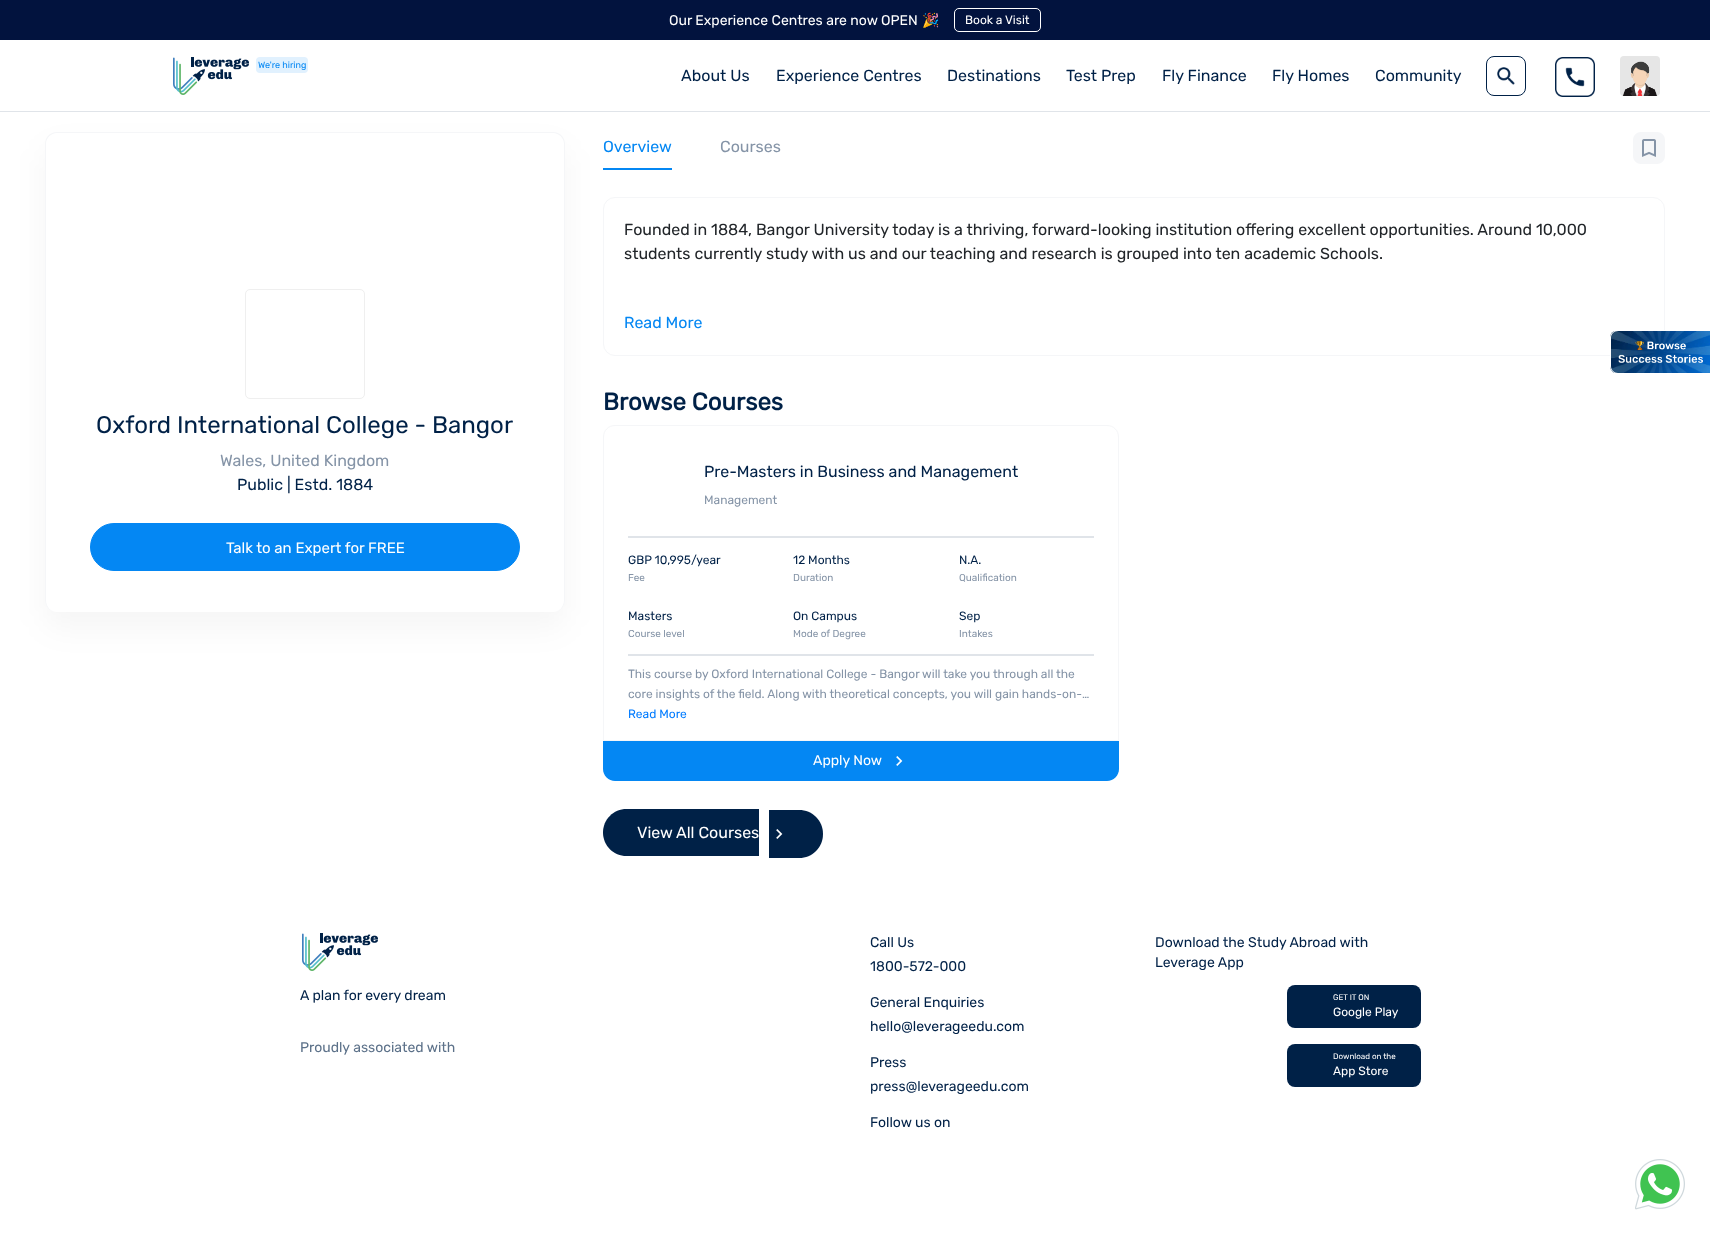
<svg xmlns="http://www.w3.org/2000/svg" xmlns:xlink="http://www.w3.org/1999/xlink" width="1710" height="1241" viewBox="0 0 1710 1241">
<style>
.cls-1{font:300 14px Rubik;fill:#ffffff}
.cls-2{font:14px Noto Color Emoji;fill:#ffffff}
.cls-3{font:300 12px Rubik;fill:#ffffff}
.cls-4{font:300 9px Rubik;fill:#0487f3}
.cls-5{font:300 16px Rubik;fill:#002147}
.cls-6{font:300 24px Rubik;fill:#002147}
.cls-7{font:300 16px Rubik;fill:#8594a7}
.cls-8{font:300 15px Rubik;fill:#ffffff}
.cls-9{font:300 16px Rubik;fill:#0487f3}
.cls-10{font:300 16px Rubik;fill:#212529}
.cls-11{font:bold 24px Rubik;fill:#002147}
.cls-12{font:300 12px Rubik;fill:#8594a7}
.cls-13{font:300 12px Rubik;fill:#002147}
.cls-14{font:300 10px Rubik;fill:#8594a7}
.cls-15{font:300 12px Rubik;fill:#007bff}
.cls-16{font:300 16px Rubik;fill:#ffffff}
.cls-17{font:300 14px Rubik;fill:#002147}
.cls-18{font:300 14px Rubik;fill:#5c7189}
.cls-19{font:300 8px Rubik;fill:#ffffff}
</style>
<rect width="100%" height="100%" fill="#ffffff"/>
<rect fill="#02133e" x="0" y="0" width="1710" height="40"/>
<rect fill="none" stroke="#ffffff" x="954.5" y="8.5" width="86" height="23" rx="4.5"/>
<rect fill="#000000" fill-opacity="0.04" filter="blur(16px)" x="45" y="148" width="520" height="480" rx="12"/>
<rect fill="#e0e4e9" x="0" y="111" width="1710" height="1"/>
<image xlink:href="image0.png" x="173" y="57" width="76" height="38"/>
<rect fill="#e1f1fe" x="256" y="57" width="52" height="16" rx="4"/>
<rect fill="none" stroke="#002147" x="1486.5" y="56.5" width="39" height="39" rx="7.5"/>
<image xlink:href="image1.png" x="1497" y="67" width="18" height="18"/>
<image xlink:href="image2.png" x="1555" y="57" width="40" height="40"/>
<image xlink:href="image3.png" x="1620" y="56" width="40" height="40"/>
<rect fill="#ffffff" x="45" y="132" width="520" height="480" rx="12"/>
<path fill="#f5f6f8" fill-rule="evenodd" d="M57 132H553C560 132 565 137 565 144V600C565 607 560 612 553 612H57C50 612 45 607 45 600V144C45 137 50 132 57 132ZM57 133H553C559 133 564 138 564 144V600C564 607 559 612 553 612H57C51 612 46 607 46 600V144C46 138 51 133 57 133Z"/>
<rect fill="none" stroke="#efefef" x="245.5" y="289.5" width="119" height="109" rx="4.5"/>
<rect fill="#0487f3" stroke="#0487f3" x="90.5" y="523.5" width="429" height="47" rx="23.5"/>
<rect fill="#0487f3" x="603" y="168" width="69" height="2"/>
<image xlink:href="image4.png" x="1633" y="132" width="32" height="32"/>
<rect fill="none" stroke="#f5f6f8" x="603.5" y="197.5" width="1061" height="158" rx="11.5"/>
<path fill="none" stroke="#f5f6f8" d="M615 425.5H1107C1113.5 425.5 1118.5 430.5 1118.5 437V740.5H603.5V437C603.5 430.5 608.5 425.5 615 425.5Z"/>
<rect fill="#e0e4e9" x="628" y="536" width="466" height="2"/>
<rect fill="#e0e4e9" x="628" y="654" width="466" height="2"/>
<path fill="#0487f3" d="M603 741H1119V769C1119 775.5 1113.5 781 1107 781H615C608.5 781 603 775.5 603 769Z"/>
<image xlink:href="image5.png" x="896" y="756" width="7" height="10"/>
<path fill="#002147" d="M626.5 809H759V856H626.5C613.5 856 603 845.5 603 832.5C603 819.5 613.5 809 626.5 809Z"/>
<path fill="#002147" d="M769 810H799C812.5 810 823 820.5 823 834C823 847.5 812.5 858 799 858H769Z"/>
<image xlink:href="image6.png" x="776" y="829" width="7" height="10"/>
<image xlink:href="image0.png" x="302" y="933" width="76" height="38"/>
<rect fill="#002147" x="1287" y="985" width="134" height="43" rx="8"/>
<rect fill="#002147" x="1287" y="1044" width="134" height="43" rx="8"/>
<image xlink:href="image7.png" x="1635" y="1159" width="50" height="51"/>
<image xlink:href="image8.png" x="1610" y="331" width="100" height="42"/>
<path fill="#ffffff" fill-rule="evenodd" d="M1618 330H1710V374H1618C1614 374 1610 370 1610 366V338C1610 334 1614 330 1618 330ZM1618 331H1710V373H1618C1614 373 1611 370 1611 366V338C1611 334 1614 331 1618 331Z"/>
<image xlink:href="image9.png" x="1618" y="341" width="85" height="22"/>
<text class="cls-1" x="669" y="25">Our Experience Centres are now OPEN</text>
<text class="cls-2" x="922" y="25">🎉</text>
<text class="cls-3" x="965" y="24">Book a Visit</text>
<text class="cls-4" x="258" y="68">We're hiring</text>
<text class="cls-5" x="681" y="81">About Us</text>
<text class="cls-5" x="776" y="81">Experience Centres</text>
<text class="cls-5" x="947" y="81">Destinations</text>
<text class="cls-5" x="1066" y="81">Test Prep</text>
<text class="cls-5" x="1162" y="81">Fly Finance</text>
<text class="cls-5" x="1272" y="81">Fly Homes</text>
<text class="cls-5" x="1375" y="81">Community</text>
<text class="cls-6" x="96" y="433">Oxford International College - Bangor</text>
<text class="cls-7" x="220" y="466">Wales, United Kingdom</text>
<text class="cls-5" x="237" y="490">Public | Estd. 1884</text>
<text class="cls-8" x="226" y="553">Talk to an Expert for FREE</text>
<text class="cls-9" x="603" y="152">Overview</text>
<text class="cls-7" x="720" y="152">Courses</text>
<text class="cls-10"><tspan x="624" y="235">Founded in 1884, Bangor University today is a thriving, forward-looking institution offering excellent opportunities. Around 10,000</tspan><tspan x="624" y="259">students currently study with us and our teaching and research is grouped into ten academic Schools.</tspan></text>
<text class="cls-9" x="624" y="328">Read More</text>
<text class="cls-11" x="603" y="410">Browse Courses</text>
<text class="cls-5" x="704" y="477">Pre-Masters in Business and Management</text>
<text class="cls-12" x="704" y="504">Management</text>
<text class="cls-13" x="628" y="564">GBP 10,995/year</text>
<text class="cls-14" x="628" y="581">Fee</text>
<text class="cls-13" x="793" y="564">12 Months</text>
<text class="cls-14" x="793" y="581">Duration</text>
<text class="cls-13" x="959" y="564">N.A.</text>
<text class="cls-14" x="959" y="581">Qualification</text>
<text class="cls-13" x="628" y="620">Masters</text>
<text class="cls-14" x="628" y="637">Course level</text>
<text class="cls-13" x="793" y="620">On Campus</text>
<text class="cls-14" x="793" y="637">Mode of Degree</text>
<text class="cls-13" x="959" y="620">Sep</text>
<text class="cls-14" x="959" y="637">Intakes</text>
<text class="cls-12"><tspan x="628" y="678">This course by Oxford International College - Bangor will take you through all the</tspan><tspan x="628" y="698">core insights of the field. Along with theoretical concepts, you will gain hands-on-…</tspan></text>
<text class="cls-15" x="628" y="718">Read More</text>
<text class="cls-1" x="813" y="765">Apply Now</text>
<text class="cls-16" x="637" y="838">View All Courses</text>
<text class="cls-17" x="300" y="1000">A plan for every dream</text>
<text class="cls-18" x="300" y="1052">Proudly associated with</text>
<text class="cls-17"><tspan x="870" y="947">Call Us</tspan><tspan x="870" y="971">1800-572-000</tspan></text>
<text class="cls-17"><tspan x="870" y="1007">General Enquiries</tspan><tspan x="870" y="1031">hello@leverageedu.com</tspan></text>
<text class="cls-17"><tspan x="870" y="1067">Press</tspan><tspan x="870" y="1091">press@leverageedu.com</tspan></text>
<text class="cls-17" x="870" y="1127">Follow us on</text>
<text class="cls-17"><tspan x="1155" y="947">Download the Study Abroad with</tspan><tspan x="1155" y="967">Leverage App</tspan></text>
<text class="cls-19" x="1333" y="1000">GET IT ON</text>
<text class="cls-3" x="1333" y="1016">Google Play</text>
<text class="cls-19" x="1333" y="1059">Download on the</text>
<text class="cls-3" x="1333" y="1075">App Store</text>
</svg>
